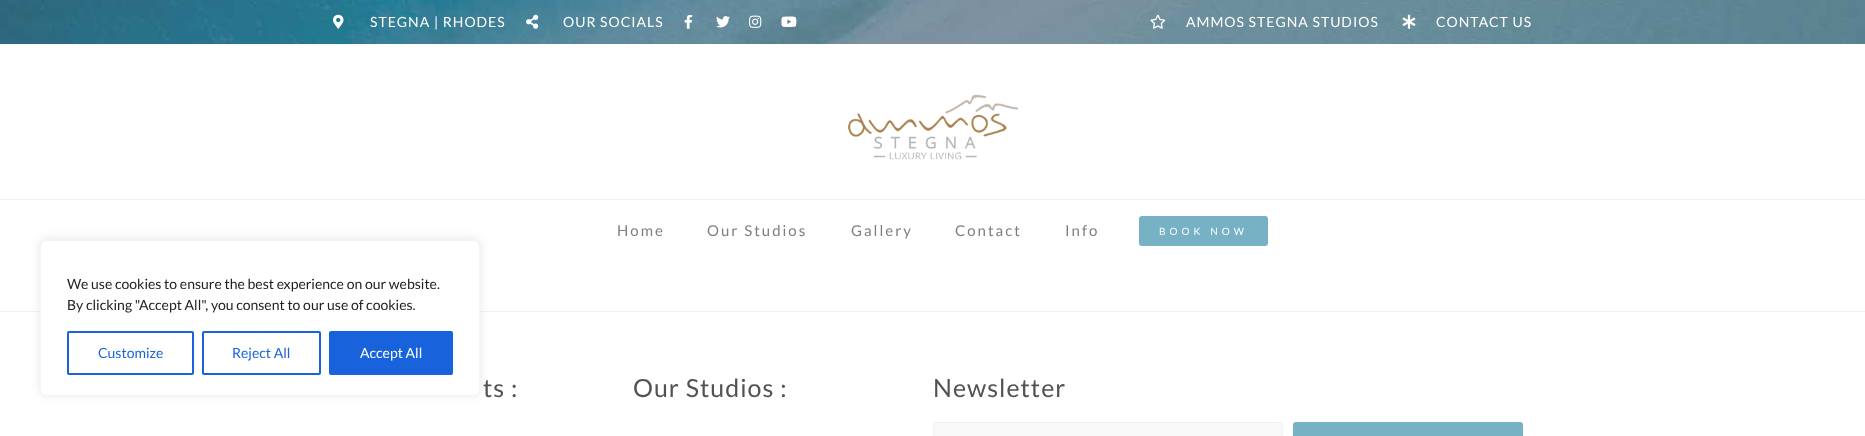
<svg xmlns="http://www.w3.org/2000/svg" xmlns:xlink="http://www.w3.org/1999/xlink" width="1865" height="436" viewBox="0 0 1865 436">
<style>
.cls-1{font:14px Lato;fill:#212121}
.cls-2{font:14px Lato;fill:#1863dc}
.cls-3{font:14px Lato;fill:#ffffff}
.cls-4{font:14px Lato;letter-spacing:1px;fill:#ffffff}
.cls-5{font:15px Lato;letter-spacing:2px;fill:#7e7e7e}
.cls-6{font:10px Lato;letter-spacing:4px;fill:#ffffff}
.cls-7{font:25px Lato;letter-spacing:1px;fill:#525252}
</style>
<rect width="100%" height="100%" fill="#ffffff"/>
<rect fill="#f1f1f1" x="0" y="311" width="1865" height="1"/>
<rect fill="#acabab" fill-opacity="0.3" filter="blur(5px)" x="40" y="239" width="440" height="156" rx="6"/>
<rect fill="#ffffff" stroke="#f4f4f4" x="40.5" y="240.5" width="439" height="155" rx="5.5"/>
<rect fill="none" stroke="#1863dc" stroke-width="2" x="68" y="332" width="125" height="42" rx="1"/>
<rect fill="none" stroke="#1863dc" stroke-width="2" x="203" y="332" width="117" height="42" rx="1"/>
<rect fill="#1863dc" stroke="#1863dc" stroke-width="2" x="330" y="332" width="122" height="42" rx="1"/>
<image xlink:href="image0.png" x="0" y="0" width="1865" height="44"/>
<image xlink:href="image1.png" x="333" y="14" width="11" height="15"/>
<image xlink:href="image2.png" x="526" y="14" width="13" height="15"/>
<image xlink:href="image3.png" x="684" y="15" width="9" height="14"/>
<image xlink:href="image4.png" x="716" y="16" width="14" height="12"/>
<image xlink:href="image5.png" x="749" y="15" width="13" height="13"/>
<image xlink:href="image6.png" x="781" y="16" width="16" height="11"/>
<image xlink:href="image7.png" x="1150" y="14" width="16" height="15"/>
<image xlink:href="image8.png" x="1402" y="14" width="14" height="15"/>
<image xlink:href="image9.png" x="848" y="94" width="170" height="66"/>
<rect fill="#f1f1f1" x="0" y="199" width="1865" height="1"/>
<rect fill="#76b1c4" x="1139" y="216" width="129" height="30" rx="3"/>
<rect fill="#f9f9f9" stroke="#f1f1f1" x="933.5" y="422.5" width="349" height="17" rx="2.5"/>
<rect fill="#76b1c4" x="1293" y="422" width="230" height="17" rx="3"/>
<text class="cls-1"><tspan x="67" y="289">We use cookies to ensure the best experience on our website.</tspan><tspan x="67" y="310">By clicking "Accept All", you consent to our use of cookies.</tspan></text>
<text class="cls-2" x="98" y="358">Customize</text>
<text class="cls-2" x="232" y="358">Reject All</text>
<text class="cls-3" x="360" y="358">Accept All</text>
<text class="cls-4" x="370" y="27">STEGNA | RHODES</text>
<text class="cls-4" x="563" y="27">OUR SOCIALS</text>
<text class="cls-4" x="1186" y="27">AMMOS STEGNA STUDIOS</text>
<text class="cls-4" x="1436" y="27">CONTACT US</text>
<text class="cls-5" x="617" y="236">Home</text>
<text class="cls-5" x="707" y="236">Our Studios</text>
<text class="cls-5" x="851" y="236">Gallery</text>
<text class="cls-5" x="955" y="236">Contact</text>
<text class="cls-5" x="1065" y="236">Info</text>
<text class="cls-6" x="1159" y="235">BOOK NOW</text>
<text class="cls-7" x="483" y="397">ts :</text>
<text class="cls-7" x="633" y="397">Our Studios :</text>
<text class="cls-7" x="933" y="397">Newsletter</text>
</svg>
